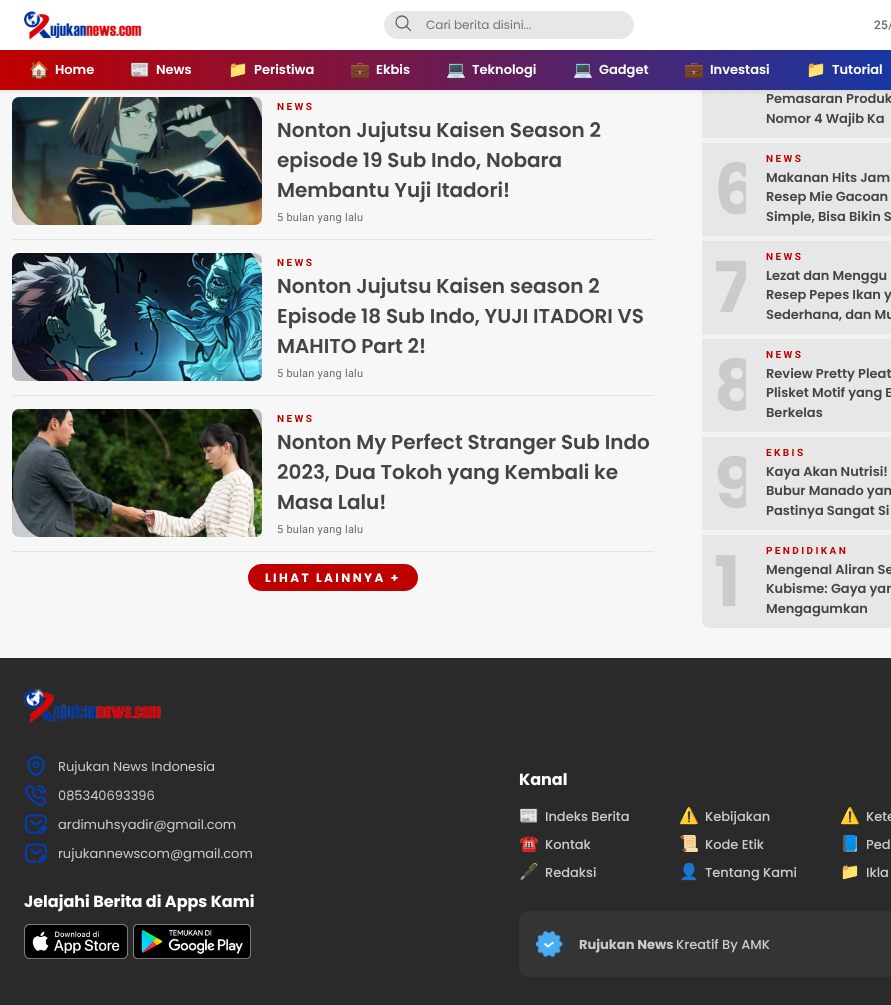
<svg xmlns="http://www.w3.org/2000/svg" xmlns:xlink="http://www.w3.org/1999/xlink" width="891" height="1005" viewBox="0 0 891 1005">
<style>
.cls-1{font:12px Poppins;fill:#757575}
.cls-2{font:500 12px Roboto;letter-spacing:0.25px;fill:#666666}
.cls-3{font:bold 16px Noto Color Emoji;fill:#ffffff}
.cls-4{font:600 13px Poppins;fill:#ffffff}
.cls-5{font:bold 10px Roboto;letter-spacing:2.4px;fill:#bf0000}
.cls-6{font:600 20px Poppins;fill:#444444}
.cls-7{font:11px Roboto;letter-spacing:0.25px;fill:#6c6c6c}
.cls-8{font:bold 12px Poppins;letter-spacing:2.4px;fill:#ffffff}
.cls-9{font:600 13px Poppins;fill:#444444}
.cls-10{font:bold 70px Poppins;fill:#cbcbcb}
.cls-11{font:13px Poppins;fill:#cbcbcb}
.cls-12{font:bold 16px Poppins;fill:#ffffff}
.cls-13{font:16px Noto Color Emoji;fill:#cbcbcb}
.cls-14{font:500 13px Poppins;fill:#cbcbcb}
.cls-15{font:bold 13px Poppins;fill:#cbcbcb}
</style>
<defs>
<linearGradient id="g1" gradientUnits="userSpaceOnUse" x1="0" y1="70" x2="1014" y2="70"><stop offset="0" stop-color="#bf0000"/><stop offset="1" stop-color="#003eba"/></linearGradient>
<clipPath id="clip1"><rect x="714" y="156" width="32" height="67"/></clipPath>
<clipPath id="clip2"><rect x="714" y="254" width="32" height="67"/></clipPath>
<clipPath id="clip3"><rect x="714" y="352" width="32" height="67"/></clipPath>
<clipPath id="clip4"><rect x="714" y="450" width="32" height="67"/></clipPath>
</defs>
<rect width="100%" height="100%" fill="#f7f7f7"/>
<image xlink:href="image1.png" x="12" y="97" width="250" height="128"/>
<rect fill="#e7e7e7" x="702" y="-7" width="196" height="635" rx="7"/>
<rect fill="#000000" fill-opacity="0.07" filter="blur(2px)" x="0" y="2" width="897" height="90"/>
<rect fill="#ffffff" x="0" y="0" width="891" height="50"/>
<image xlink:href="image0.png" x="24" y="11" width="118" height="29"/>
<rect fill="#e7e7e7" stroke="#e7e7e7" x="384.5" y="11.5" width="249" height="27" rx="13.5"/>
<circle fill="none" stroke="#666666" stroke-width="1.3" cx="402" cy="22" r="6"/>
<path fill="none" stroke="#666666" stroke-width="1.3" stroke-linecap="round" stroke-linejoin="round" d="M410.5 30.5L406 26"/>
<rect fill="url(#g1)" x="0" y="50" width="891" height="40"/>
<rect fill="#e5e5e5" x="12" y="239" width="642" height="1"/>
<rect fill="#e5e5e5" x="12" y="395" width="642" height="1"/>
<image xlink:href="image2.png" x="12" y="253" width="250" height="128"/>
<rect fill="#e5e5e5" x="12" y="551" width="642" height="1"/>
<image xlink:href="image3.png" x="12" y="409" width="250" height="128"/>
<rect fill="#bf0000" stroke="#bf0000" stroke-width="2" x="249" y="565" width="168" height="25" rx="12.5"/>
<rect fill="#f3f2f1" x="702" y="138" width="189" height="5"/>
<rect fill="#f3f2f1" x="702" y="236" width="189" height="5"/>
<rect fill="#f3f2f1" x="702" y="334" width="189" height="5"/>
<rect fill="#f3f2f1" x="702" y="432" width="189" height="5"/>
<rect fill="#f3f2f1" x="702" y="530" width="189" height="5"/>
<rect fill="#2a2a2a" x="0" y="658" width="891" height="347"/>
<image xlink:href="image4.png" x="24" y="688" width="137" height="35"/>
<image xlink:href="image5.png" x="27" y="756" width="18" height="20"/>
<image xlink:href="image6.png" x="25" y="784" width="22" height="22"/>
<image xlink:href="image7.png" x="25" y="814" width="22" height="20"/>
<image xlink:href="image7.png" x="25" y="843" width="22" height="20"/>
<image xlink:href="image8.png" x="24" y="924" width="104" height="35"/>
<image xlink:href="image9.png" x="133" y="924" width="118" height="35"/>
<rect fill="#343434" x="519" y="911" width="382" height="66" rx="10"/>
<image xlink:href="image10.png" x="535" y="930" width="28" height="28"/>
<text class="cls-1" x="426" y="29">Cari berita disini...</text>
<text class="cls-2" x="874" y="29">25/</text>
<text class="cls-3" x="29" y="75">🏠</text>
<text class="cls-4" x="55" y="74">Home</text>
<text class="cls-3" x="130" y="75">📰</text>
<text class="cls-4" x="156" y="74">News</text>
<text class="cls-3" x="228" y="75">📁</text>
<text class="cls-4" x="254" y="74">Peristiwa</text>
<text class="cls-3" x="350" y="75">💼</text>
<text class="cls-4" x="376" y="74">Ekbis</text>
<text class="cls-3" x="446" y="75">💻</text>
<text class="cls-4" x="472" y="74">Teknologi</text>
<text class="cls-3" x="573" y="75">💻</text>
<text class="cls-4" x="599" y="74">Gadget</text>
<text class="cls-3" x="684" y="75">💼</text>
<text class="cls-4" x="710" y="74">Investasi</text>
<text class="cls-3" x="806" y="75">📁</text>
<text class="cls-4" x="832" y="74">Tutorial</text>
<text class="cls-5" x="277" y="110">NEWS</text>
<text class="cls-6"><tspan x="277" y="137">Nonton Jujutsu Kaisen Season 2</tspan><tspan x="277" y="167">episode 19 Sub Indo, Nobara</tspan><tspan x="277" y="197">Membantu Yuji Itadori!</tspan></text>
<text class="cls-7" x="277" y="221">5 bulan yang lalu</text>
<text class="cls-5" x="277" y="266">NEWS</text>
<text class="cls-6"><tspan x="277" y="293">Nonton Jujutsu Kaisen season 2</tspan><tspan x="277" y="323">Episode 18 Sub Indo, YUJI ITADORI VS</tspan><tspan x="277" y="353">MAHITO Part 2!</tspan></text>
<text class="cls-7" x="277" y="377">5 bulan yang lalu</text>
<text class="cls-5" x="277" y="422">NEWS</text>
<text class="cls-6"><tspan x="277" y="449">Nonton My Perfect Stranger Sub Indo</tspan><tspan x="277" y="479">2023, Dua Tokoh yang Kembali ke</tspan><tspan x="277" y="509">Masa Lalu!</tspan></text>
<text class="cls-7" x="277" y="533">5 bulan yang lalu</text>
<text class="cls-8" x="265" y="582">LIHAT LAINNYA +</text>
<text class="cls-9"><tspan x="766" y="103">Pemasaran Produk</tspan><tspan x="766" y="123">Nomor 4 Wajib Ka</tspan></text>
<g clip-path="url(#clip1)">
<text class="cls-10" x="714" y="214">6</text>
</g>
<text class="cls-5" x="766" y="162">NEWS</text>
<text class="cls-9"><tspan x="766" y="182">Makanan Hits Jam</tspan><tspan x="766" y="201">Resep Mie Gacoan</tspan><tspan x="766" y="221">Simple, Bisa Bikin S</tspan></text>
<g clip-path="url(#clip2)">
<text class="cls-10" x="714" y="312">7</text>
</g>
<text class="cls-5" x="766" y="260">NEWS</text>
<text class="cls-9"><tspan x="766" y="280">Lezat dan Menggu</tspan><tspan x="766" y="299">Resep Pepes Ikan y</tspan><tspan x="766" y="319">Sederhana, dan Mu</tspan></text>
<g clip-path="url(#clip3)">
<text class="cls-10" x="714" y="410">8</text>
</g>
<text class="cls-5" x="766" y="358">NEWS</text>
<text class="cls-9"><tspan x="766" y="378">Review Pretty Pleat</tspan><tspan x="766" y="397">Plisket Motif yang E</tspan><tspan x="766" y="417">Berkelas</tspan></text>
<g clip-path="url(#clip4)">
<text class="cls-10" x="714" y="508">9</text>
</g>
<text class="cls-5" x="766" y="456">EKBIS</text>
<text class="cls-9"><tspan x="766" y="476">Kaya Akan Nutrisi!</tspan><tspan x="766" y="495">Bubur Manado yan</tspan><tspan x="766" y="515">Pastinya Sangat Si</tspan></text>
<text class="cls-10" x="714" y="606">1</text>
<text class="cls-5" x="766" y="554">PENDIDIKAN</text>
<text class="cls-9"><tspan x="766" y="574">Mengenal Aliran Se</tspan><tspan x="766" y="593">Kubisme: Gaya yan</tspan><tspan x="766" y="613">Mengagumkan</tspan></text>
<text class="cls-11" x="58" y="771">Rujukan News Indonesia</text>
<text class="cls-11" x="58" y="800">085340693396</text>
<text class="cls-11" x="58" y="829">ardimuhsyadir@gmail.com</text>
<text class="cls-11" x="58" y="858">rujukannewscom@gmail.com</text>
<text class="cls-12" x="24" y="907">Jelajahi Berita di Apps Kami</text>
<text class="cls-12" x="519" y="785">Kanal</text>
<text class="cls-13" x="519" y="821">📰</text>
<text class="cls-14" x="545" y="821">Indeks Berita</text>
<text class="cls-13" x="679" y="821">⚠️</text>
<text class="cls-14" x="705" y="821">Kebijakan</text>
<text class="cls-13" x="840" y="821">⚠️</text>
<text class="cls-14" x="866" y="821">Kete</text>
<text class="cls-13" x="519" y="849">☎️</text>
<text class="cls-14" x="545" y="849">Kontak</text>
<text class="cls-13" x="679" y="849">📜</text>
<text class="cls-14" x="705" y="849">Kode Etik</text>
<text class="cls-13" x="840" y="849">📘</text>
<text class="cls-14" x="866" y="849">Ped</text>
<text class="cls-13" x="519" y="877">🖋️</text>
<text class="cls-14" x="545" y="877">Redaksi</text>
<text class="cls-13" x="679" y="877">👤</text>
<text class="cls-14" x="705" y="877">Tentang Kami</text>
<text class="cls-13" x="840" y="877">📁</text>
<text class="cls-14" x="866" y="877">Ikla</text>
<text class="cls-15" x="579" y="949">Rujukan News</text>
<text class="cls-14" x="676" y="949">Kreatif By AMK</text>
</svg>
